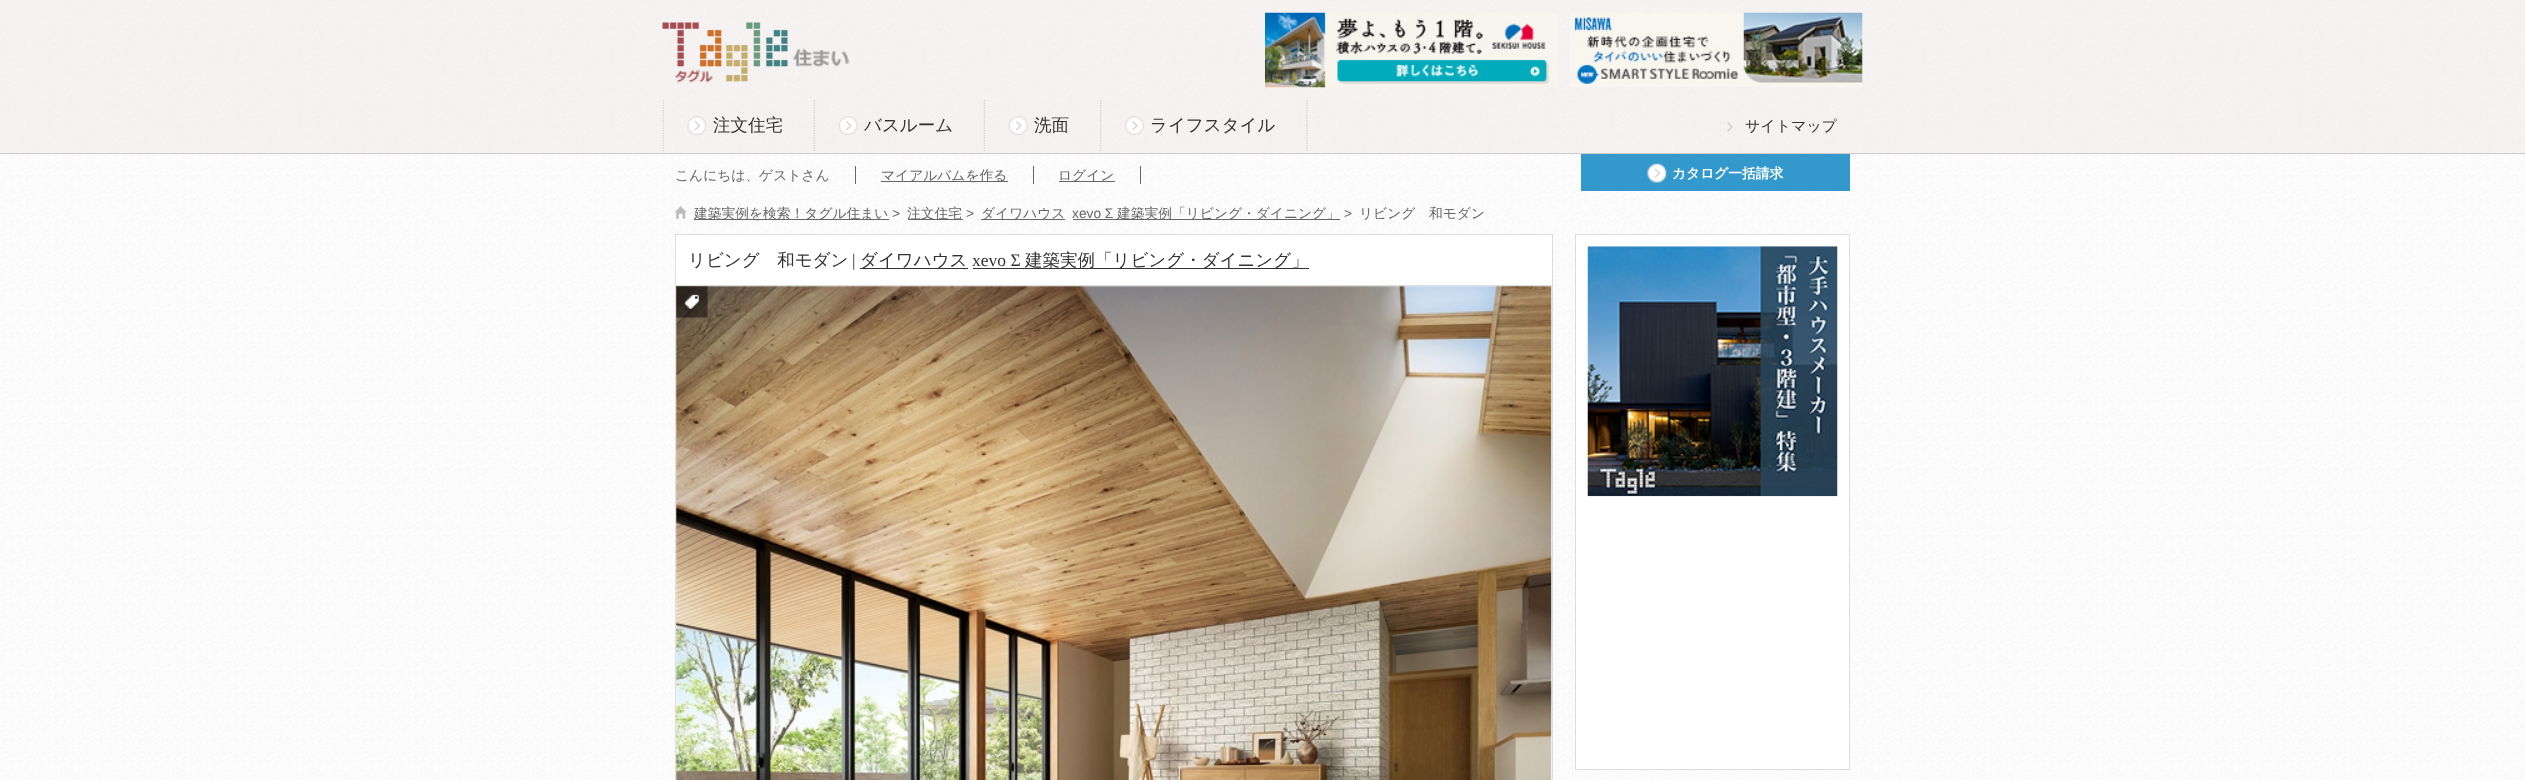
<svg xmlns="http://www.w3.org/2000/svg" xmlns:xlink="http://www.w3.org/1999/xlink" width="2525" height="780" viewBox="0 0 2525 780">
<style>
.cls-1{font:500 17.5px WenQuanYi Zen Hei;fill:#333333}
.cls-2{font:500 15px WenQuanYi Zen Hei;fill:#333333}
.cls-3{font:500 13.75px WenQuanYi Zen Hei;fill:#666666}
.cls-4{font:bold 13.75px WenQuanYi Zen Hei;fill:#ffffff}
.cls-5{font:13.75px Liberation Sans;fill:#666666}
.cls-6{font:17.5px Liberation Serif;fill:#333333}
</style>
<rect width="100%" height="100%" fill="#ffffff"/>
<image xlink:href="image0.png" x="0" y="154" width="2525" height="626"/>
<image xlink:href="image1.png" x="0" y="0" width="2525" height="153"/>
<rect fill="#cccccc" x="0" y="153" width="2525" height="1"/>
<image xlink:href="image2.png" x="662" y="22" width="187" height="61"/>
<image xlink:href="image3.png" x="1265" y="12" width="292" height="76"/>
<image xlink:href="image4.png" x="1570" y="12" width="293" height="75"/>
<image xlink:href="image5.png" x="1306" y="100" width="2" height="51"/>
<image xlink:href="image6.png" x="662" y="100" width="2" height="51"/>
<image xlink:href="image7.png" x="687" y="116" width="20" height="19"/>
<image xlink:href="image8.png" x="813" y="100" width="2" height="51"/>
<image xlink:href="image9.png" x="838" y="116" width="20" height="19"/>
<image xlink:href="image10.png" x="983" y="100" width="2" height="51"/>
<image xlink:href="image11.png" x="1008" y="116" width="20" height="19"/>
<image xlink:href="image12.png" x="1100" y="100" width="2" height="51"/>
<image xlink:href="image13.png" x="1125" y="116" width="19" height="19"/>
<image xlink:href="image14.png" x="1727" y="122" width="6" height="10"/>
<rect fill="#666666" x="855" y="166" width="1" height="18"/>
<rect fill="#666666" x="1033" y="166" width="1" height="18"/>
<rect fill="#666666" x="881" y="181" width="127" height="1"/>
<rect fill="#666666" x="1140" y="166" width="1" height="18"/>
<rect fill="#666666" x="1059" y="181" width="56" height="1"/>
<rect fill="#3399cc" x="1581" y="154" width="269" height="37"/>
<image xlink:href="image15.png" x="1647" y="163" width="20" height="20"/>
<image xlink:href="image16.png" x="675" y="206" width="12" height="13"/>
<rect fill="#666666" x="694" y="219" width="195" height="1"/>
<rect fill="#666666" x="908" y="219" width="55" height="1"/>
<rect fill="#666666" x="981" y="219" width="84" height="1"/>
<rect fill="#666666" x="1073" y="219" width="267" height="1"/>
<rect fill="#ffffff" stroke="#dddddd" x="675.5" y="234.5" width="877" height="51"/>
<rect fill="#333333" x="860" y="268" width="108" height="1"/>
<rect fill="#333333" x="973" y="268" width="336" height="1"/>
<rect fill="#ffffff" stroke="#dddddd" x="675.5" y="285.5" width="877" height="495"/>
<image xlink:href="image17.png" x="676" y="286" width="876" height="494"/>
<image xlink:href="image18.png" x="676" y="286" width="32" height="32"/>
<rect fill="#ffffff" stroke="#dddddd" x="1575.5" y="234.5" width="274" height="535"/>
<image xlink:href="image19.png" x="1587" y="246" width="251" height="251"/>
<text class="cls-1" x="713" y="131">注文住宅</text>
<text class="cls-1" x="864" y="131">バスルーム</text>
<text class="cls-1" x="1034" y="131">洗面</text>
<text class="cls-1" x="1150" y="131">ライフスタイル</text>
<text class="cls-2" x="1745" y="131">サイトマップ</text>
<text class="cls-3" x="675" y="180">こんにちは、ゲストさん</text>
<text class="cls-3" x="881" y="180">マイアルバムを作る</text>
<text class="cls-3" x="1058" y="180">ログイン</text>
<text class="cls-4" x="1672" y="178">カタログ一括請求</text>
<text class="cls-3" x="694" y="218">建築実例を検索！タグル住まい</text>
<text class="cls-5" x="892" y="218">&gt;</text>
<text class="cls-3" x="907" y="218">注文住宅</text>
<text class="cls-5" x="966" y="218">&gt;</text>
<text class="cls-3" x="981" y="218">ダイワハウス</text>
<text class="cls-5" x="1072" y="218">xevo Σ</text>
<text class="cls-3" x="1117" y="218">建築実例「リビング・ダイニング」</text>
<text class="cls-5" x="1344" y="218">&gt;</text>
<text class="cls-3" x="1359" y="218">リビング　和モダン</text>
<text class="cls-1" x="688" y="266">リビング　和モダン</text>
<text class="cls-6" x="852" y="266">|</text>
<text class="cls-1" x="860" y="266">ダイワハウス</text>
<text class="cls-6" x="972" y="266">xevo Σ</text>
<text class="cls-1" x="1025" y="266">建築実例「リビング・ダイニング」</text>
</svg>
